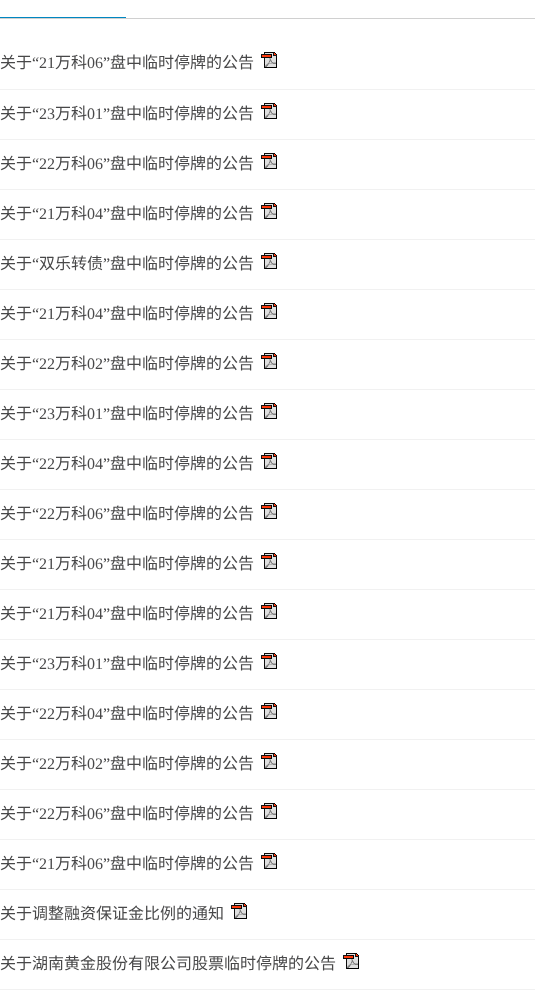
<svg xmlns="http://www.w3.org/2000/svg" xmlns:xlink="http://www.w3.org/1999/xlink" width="535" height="990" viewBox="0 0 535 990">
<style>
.cls-1{font:16px Noto Sans CJK SC;fill:#484849}
.cls-2{font:16px Liberation Serif;fill:#484849}
</style>
<rect width="100%" height="100%" fill="#ffffff"/>
<rect fill="#d0d0d0" x="0" y="18" width="535" height="1"/>
<rect fill="#0087c1" x="0" y="17" width="126" height="1"/>
<rect fill="#f1f1f1" x="0" y="89" width="535" height="1"/>
<image xlink:href="image0.png" x="261" y="52" width="16" height="16"/>
<rect fill="#f1f1f1" x="0" y="139" width="535" height="1"/>
<image xlink:href="image0.png" x="261" y="103" width="16" height="16"/>
<rect fill="#f1f1f1" x="0" y="189" width="535" height="1"/>
<image xlink:href="image0.png" x="261" y="153" width="16" height="16"/>
<rect fill="#f1f1f1" x="0" y="239" width="535" height="1"/>
<image xlink:href="image0.png" x="261" y="203" width="16" height="16"/>
<rect fill="#f1f1f1" x="0" y="289" width="535" height="1"/>
<image xlink:href="image0.png" x="261" y="253" width="16" height="16"/>
<rect fill="#f1f1f1" x="0" y="339" width="535" height="1"/>
<image xlink:href="image0.png" x="261" y="303" width="16" height="16"/>
<rect fill="#f1f1f1" x="0" y="389" width="535" height="1"/>
<image xlink:href="image0.png" x="261" y="353" width="16" height="16"/>
<rect fill="#f1f1f1" x="0" y="439" width="535" height="1"/>
<image xlink:href="image0.png" x="261" y="403" width="16" height="16"/>
<rect fill="#f1f1f1" x="0" y="489" width="535" height="1"/>
<image xlink:href="image0.png" x="261" y="453" width="16" height="16"/>
<rect fill="#f1f1f1" x="0" y="539" width="535" height="1"/>
<image xlink:href="image0.png" x="261" y="503" width="16" height="16"/>
<rect fill="#f1f1f1" x="0" y="589" width="535" height="1"/>
<image xlink:href="image0.png" x="261" y="553" width="16" height="16"/>
<rect fill="#f1f1f1" x="0" y="639" width="535" height="1"/>
<image xlink:href="image0.png" x="261" y="603" width="16" height="16"/>
<rect fill="#f1f1f1" x="0" y="689" width="535" height="1"/>
<image xlink:href="image0.png" x="261" y="653" width="16" height="16"/>
<rect fill="#f1f1f1" x="0" y="739" width="535" height="1"/>
<image xlink:href="image0.png" x="261" y="703" width="16" height="16"/>
<rect fill="#f1f1f1" x="0" y="789" width="535" height="1"/>
<image xlink:href="image0.png" x="261" y="753" width="16" height="16"/>
<rect fill="#f1f1f1" x="0" y="839" width="535" height="1"/>
<image xlink:href="image0.png" x="261" y="803" width="16" height="16"/>
<rect fill="#f1f1f1" x="0" y="889" width="535" height="1"/>
<image xlink:href="image0.png" x="261" y="853" width="16" height="16"/>
<rect fill="#f1f1f1" x="0" y="939" width="535" height="1"/>
<image xlink:href="image0.png" x="231" y="903" width="16" height="16"/>
<rect fill="#f1f1f1" x="0" y="989" width="535" height="1"/>
<image xlink:href="image0.png" x="343" y="953" width="16" height="16"/>
<text class="cls-1" x="0" y="68">关于</text>
<text class="cls-2" x="32" y="68">“21</text>
<text class="cls-1" x="55" y="68">万科</text>
<text class="cls-2" x="87" y="68">06”</text>
<text class="cls-1" x="110" y="68">盘中临时停牌的公告</text>
<text class="cls-1" x="0" y="119">关于</text>
<text class="cls-2" x="32" y="119">“23</text>
<text class="cls-1" x="55" y="119">万科</text>
<text class="cls-2" x="87" y="119">01”</text>
<text class="cls-1" x="110" y="119">盘中临时停牌的公告</text>
<text class="cls-1" x="0" y="169">关于</text>
<text class="cls-2" x="32" y="169">“22</text>
<text class="cls-1" x="55" y="169">万科</text>
<text class="cls-2" x="87" y="169">06”</text>
<text class="cls-1" x="110" y="169">盘中临时停牌的公告</text>
<text class="cls-1" x="0" y="219">关于</text>
<text class="cls-2" x="32" y="219">“21</text>
<text class="cls-1" x="55" y="219">万科</text>
<text class="cls-2" x="87" y="219">04”</text>
<text class="cls-1" x="110" y="219">盘中临时停牌的公告</text>
<text class="cls-1" x="0" y="269">关于</text>
<text class="cls-2" x="32" y="269">“</text>
<text class="cls-1" x="39" y="269">双乐转债</text>
<text class="cls-2" x="103" y="269">”</text>
<text class="cls-1" x="110" y="269">盘中临时停牌的公告</text>
<text class="cls-1" x="0" y="319">关于</text>
<text class="cls-2" x="32" y="319">“21</text>
<text class="cls-1" x="55" y="319">万科</text>
<text class="cls-2" x="87" y="319">04”</text>
<text class="cls-1" x="110" y="319">盘中临时停牌的公告</text>
<text class="cls-1" x="0" y="369">关于</text>
<text class="cls-2" x="32" y="369">“22</text>
<text class="cls-1" x="55" y="369">万科</text>
<text class="cls-2" x="87" y="369">02”</text>
<text class="cls-1" x="110" y="369">盘中临时停牌的公告</text>
<text class="cls-1" x="0" y="419">关于</text>
<text class="cls-2" x="32" y="419">“23</text>
<text class="cls-1" x="55" y="419">万科</text>
<text class="cls-2" x="87" y="419">01”</text>
<text class="cls-1" x="110" y="419">盘中临时停牌的公告</text>
<text class="cls-1" x="0" y="469">关于</text>
<text class="cls-2" x="32" y="469">“22</text>
<text class="cls-1" x="55" y="469">万科</text>
<text class="cls-2" x="87" y="469">04”</text>
<text class="cls-1" x="110" y="469">盘中临时停牌的公告</text>
<text class="cls-1" x="0" y="519">关于</text>
<text class="cls-2" x="32" y="519">“22</text>
<text class="cls-1" x="55" y="519">万科</text>
<text class="cls-2" x="87" y="519">06”</text>
<text class="cls-1" x="110" y="519">盘中临时停牌的公告</text>
<text class="cls-1" x="0" y="569">关于</text>
<text class="cls-2" x="32" y="569">“21</text>
<text class="cls-1" x="55" y="569">万科</text>
<text class="cls-2" x="87" y="569">06”</text>
<text class="cls-1" x="110" y="569">盘中临时停牌的公告</text>
<text class="cls-1" x="0" y="619">关于</text>
<text class="cls-2" x="32" y="619">“21</text>
<text class="cls-1" x="55" y="619">万科</text>
<text class="cls-2" x="87" y="619">04”</text>
<text class="cls-1" x="110" y="619">盘中临时停牌的公告</text>
<text class="cls-1" x="0" y="669">关于</text>
<text class="cls-2" x="32" y="669">“23</text>
<text class="cls-1" x="55" y="669">万科</text>
<text class="cls-2" x="87" y="669">01”</text>
<text class="cls-1" x="110" y="669">盘中临时停牌的公告</text>
<text class="cls-1" x="0" y="719">关于</text>
<text class="cls-2" x="32" y="719">“22</text>
<text class="cls-1" x="55" y="719">万科</text>
<text class="cls-2" x="87" y="719">04”</text>
<text class="cls-1" x="110" y="719">盘中临时停牌的公告</text>
<text class="cls-1" x="0" y="769">关于</text>
<text class="cls-2" x="32" y="769">“22</text>
<text class="cls-1" x="55" y="769">万科</text>
<text class="cls-2" x="87" y="769">02”</text>
<text class="cls-1" x="110" y="769">盘中临时停牌的公告</text>
<text class="cls-1" x="0" y="819">关于</text>
<text class="cls-2" x="32" y="819">“22</text>
<text class="cls-1" x="55" y="819">万科</text>
<text class="cls-2" x="87" y="819">06”</text>
<text class="cls-1" x="110" y="819">盘中临时停牌的公告</text>
<text class="cls-1" x="0" y="869">关于</text>
<text class="cls-2" x="32" y="869">“21</text>
<text class="cls-1" x="55" y="869">万科</text>
<text class="cls-2" x="87" y="869">06”</text>
<text class="cls-1" x="110" y="869">盘中临时停牌的公告</text>
<text class="cls-1" x="0" y="919">关于调整融资保证金比例的通知</text>
<text class="cls-1" x="0" y="969">关于湖南黄金股份有限公司股票临时停牌的公告</text>
</svg>
